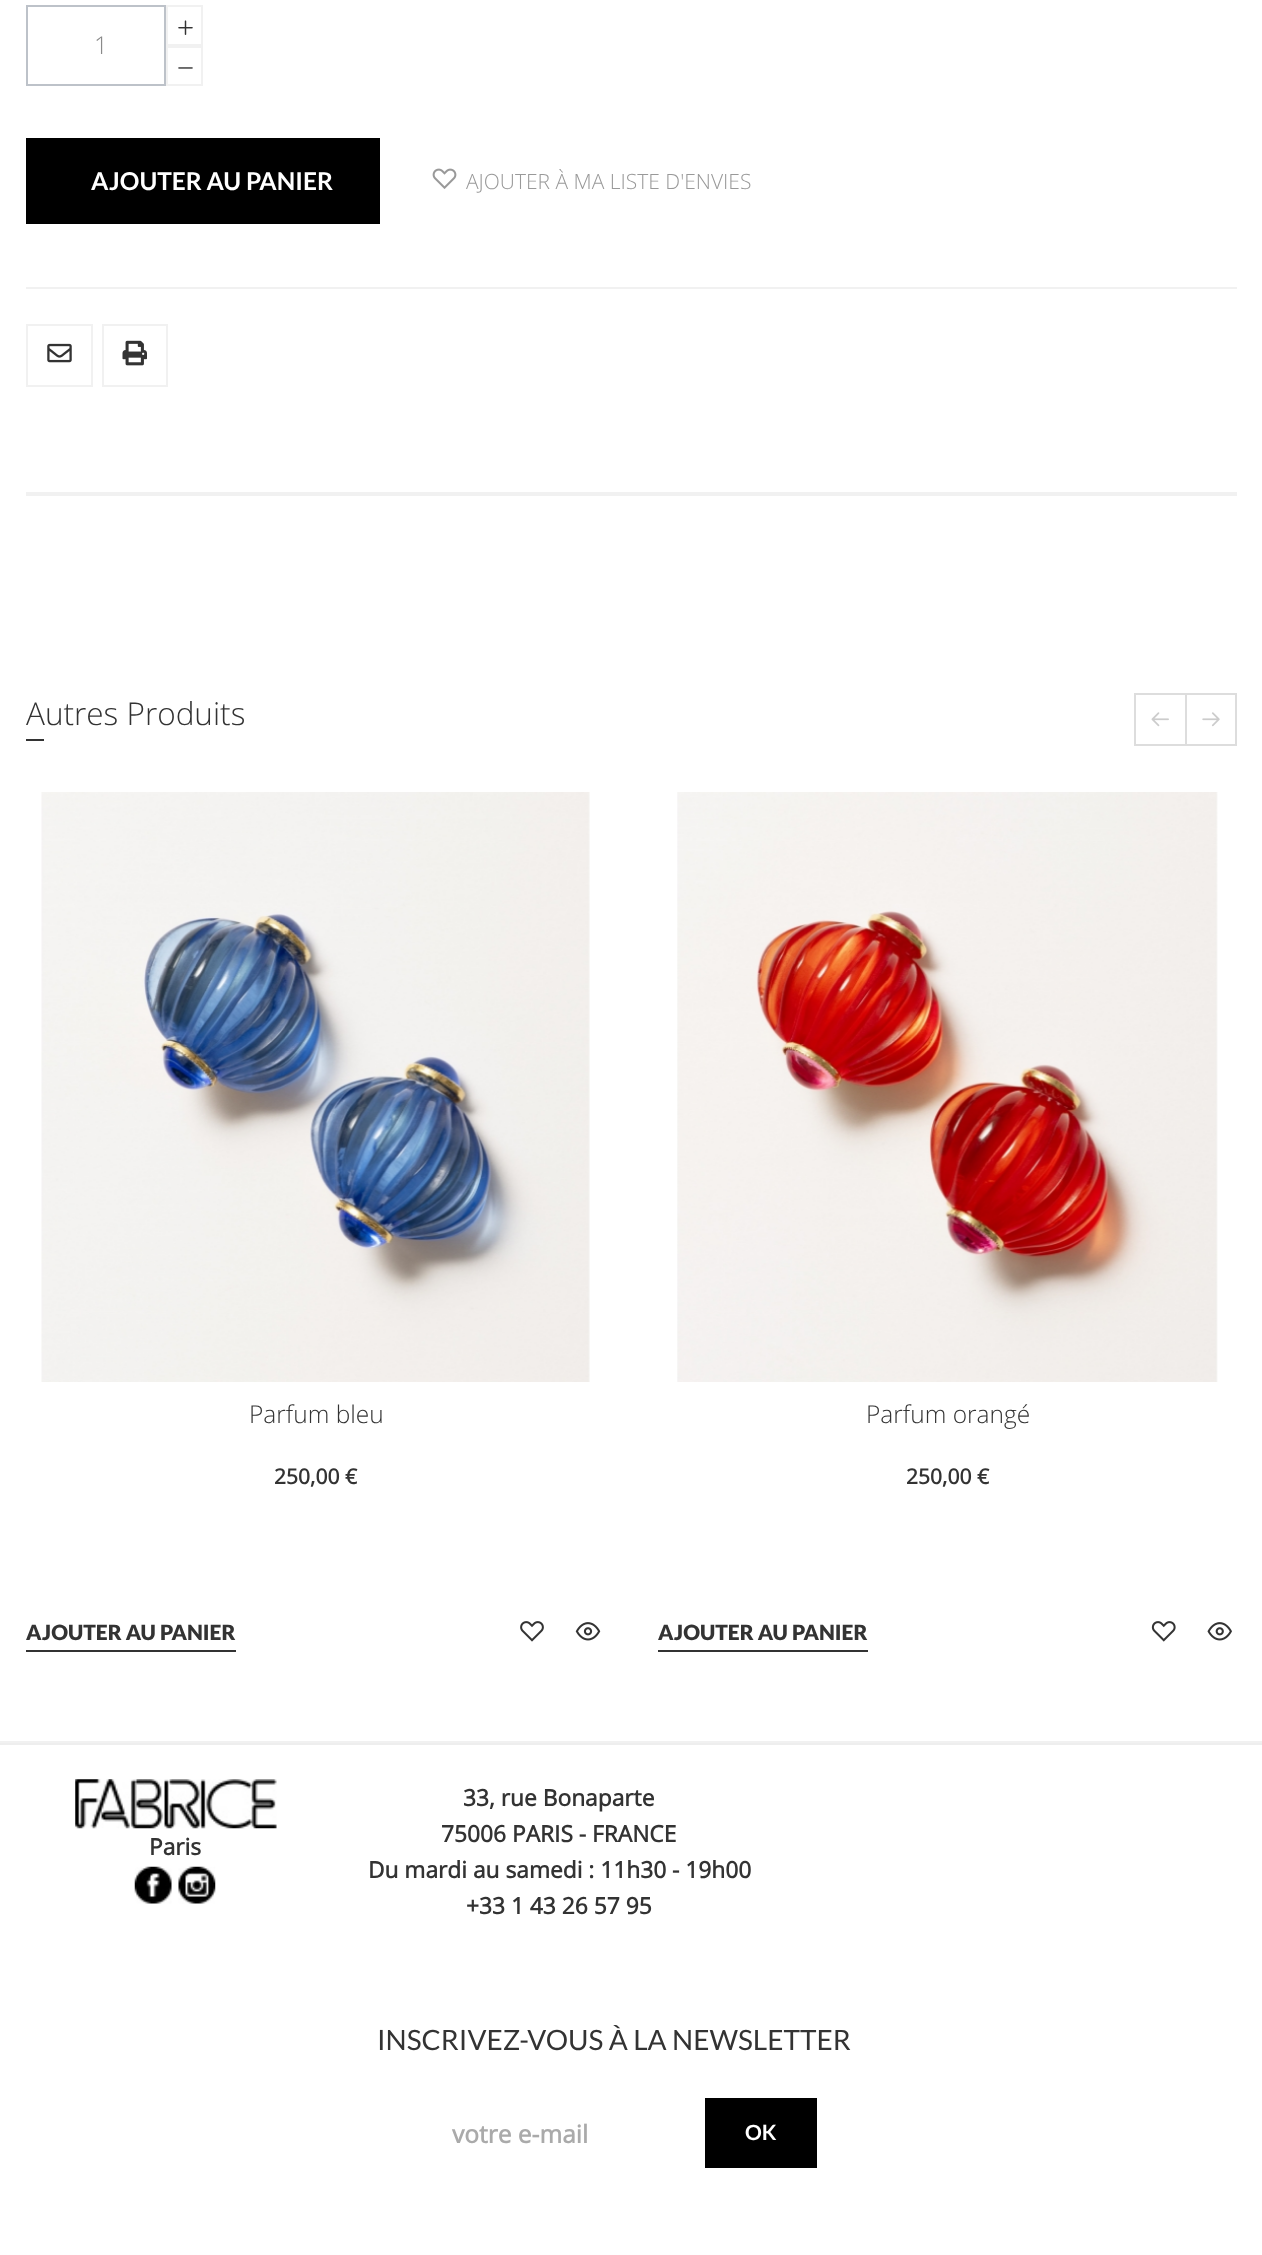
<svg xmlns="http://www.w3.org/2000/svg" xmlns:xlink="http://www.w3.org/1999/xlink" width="1262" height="2255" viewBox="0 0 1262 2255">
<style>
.cls-1{font:300 24.5px Open Sans;fill:#8a8a8a}
.cls-2{font:bold 24.5px Lato;fill:#ffffff}
.cls-3{font:300 21px Open Sans;fill:#999999}
.cls-4{font:300 31.5px Open Sans;fill:#333333}
.cls-5{font:300 24.5px Open Sans;fill:#333333}
.cls-6{font:bold 21px Open Sans;fill:#333333}
.cls-7{font:900 21px Lato;fill:#333333}
.cls-8{font:bold 22.75px Open Sans;fill:#333333}
.cls-9{font:28px Lato;fill:#333333}
.cls-10{font:bold 24.5px Open Sans;fill:#aaaaaa}
.cls-11{font:bold 21px Lato;fill:#ffffff}
</style>
<rect width="100%" height="100%" fill="#ffffff"/>
<rect fill="none" stroke="#bdc2c9" stroke-width="2" x="27" y="6" width="138" height="79"/>
<rect fill="none" stroke="#f1f1f1" stroke-width="2" x="167" y="6" width="35" height="39"/>
<image xlink:href="image0.png" x="178" y="20" width="15" height="15"/>
<rect fill="none" stroke="#f1f1f1" stroke-width="2" x="167" y="47" width="35" height="38"/>
<image xlink:href="image1.png" x="178" y="67" width="15" height="2"/>
<rect fill="#000000" x="26" y="138" width="354" height="86"/>
<image xlink:href="image2.png" x="432" y="168" width="25" height="21"/>
<rect fill="#f1f1f1" x="26" y="287" width="1211" height="2"/>
<rect fill="none" stroke="#f1f1f1" stroke-width="2" x="27" y="325" width="65" height="61"/>
<image xlink:href="image3.png" x="47" y="343" width="25" height="20"/>
<rect fill="none" stroke="#f1f1f1" stroke-width="2" x="103" y="325" width="64" height="61"/>
<image xlink:href="image4.png" x="122" y="340" width="25" height="26"/>
<rect fill="#f1f1f1" x="26" y="492" width="1211" height="4"/>
<rect fill="#333333" x="26" y="739" width="18" height="2"/>
<rect fill="none" stroke="#dddddd" stroke-width="2" x="1135" y="694" width="51" height="51"/>
<image xlink:href="image5.png" x="1151" y="712" width="18" height="15"/>
<rect fill="none" stroke="#dddddd" stroke-width="2" x="1186" y="694" width="50" height="51"/>
<image xlink:href="image6.png" x="1202" y="712" width="18" height="15"/>
<image xlink:href="image7.png" x="41" y="792" width="549" height="590"/>
<rect fill="#333333" x="26" y="1650" width="210" height="2"/>
<image xlink:href="image8.png" x="520" y="1621" width="24" height="21"/>
<image xlink:href="image9.png" x="575" y="1622" width="26" height="19"/>
<image xlink:href="image10.png" x="677" y="792" width="541" height="590"/>
<rect fill="#333333" x="658" y="1650" width="210" height="2"/>
<image xlink:href="image11.png" x="1151" y="1621" width="25" height="21"/>
<image xlink:href="image12.png" x="1207" y="1622" width="25" height="19"/>
<rect fill="#f1f1f1" x="0" y="1741" width="1262" height="2"/>
<rect fill="#eeeeee" x="0" y="1743" width="1262" height="2"/>
<image xlink:href="image13.png" x="75" y="1779" width="202" height="50"/>
<image xlink:href="image14.png" x="134" y="1866" width="38" height="38"/>
<image xlink:href="image15.png" x="178" y="1866" width="38" height="38"/>
<rect fill="#000000" x="705" y="2098" width="112" height="70"/>
<text class="cls-1" x="94" y="54">1</text>
<text class="cls-2" x="91" y="190">AJOUTER AU PANIER</text>
<text class="cls-3" x="466" y="189">AJOUTER À MA LISTE D'ENVIES</text>
<text class="cls-4" x="26" y="725">Autres Produits</text>
<text class="cls-5" x="249" y="1423">Parfum bleu</text>
<text class="cls-6" x="274" y="1484">250,00 €</text>
<text class="cls-7" x="26" y="1640">AJOUTER AU PANIER</text>
<text class="cls-5" x="866" y="1423">Parfum orangé</text>
<text class="cls-6" x="906" y="1484">250,00 €</text>
<text class="cls-7" x="658" y="1640">AJOUTER AU PANIER</text>
<text class="cls-8" x="149" y="1855">Paris</text>
<text class="cls-8" x="463" y="1806">33, rue Bonaparte</text>
<text class="cls-8" x="441" y="1842">75006 PARIS - FRANCE</text>
<text class="cls-8" x="368" y="1878">Du mardi au samedi : 11h30 - 19h00</text>
<text class="cls-8" x="466" y="1914">+33 1 43 26 57 95</text>
<text class="cls-9" x="377" y="2050">INSCRIVEZ-VOUS À LA NEWSLETTER</text>
<text class="cls-10" x="452" y="2143">votre e-mail</text>
<text class="cls-11" x="745" y="2140">OK</text>
</svg>
